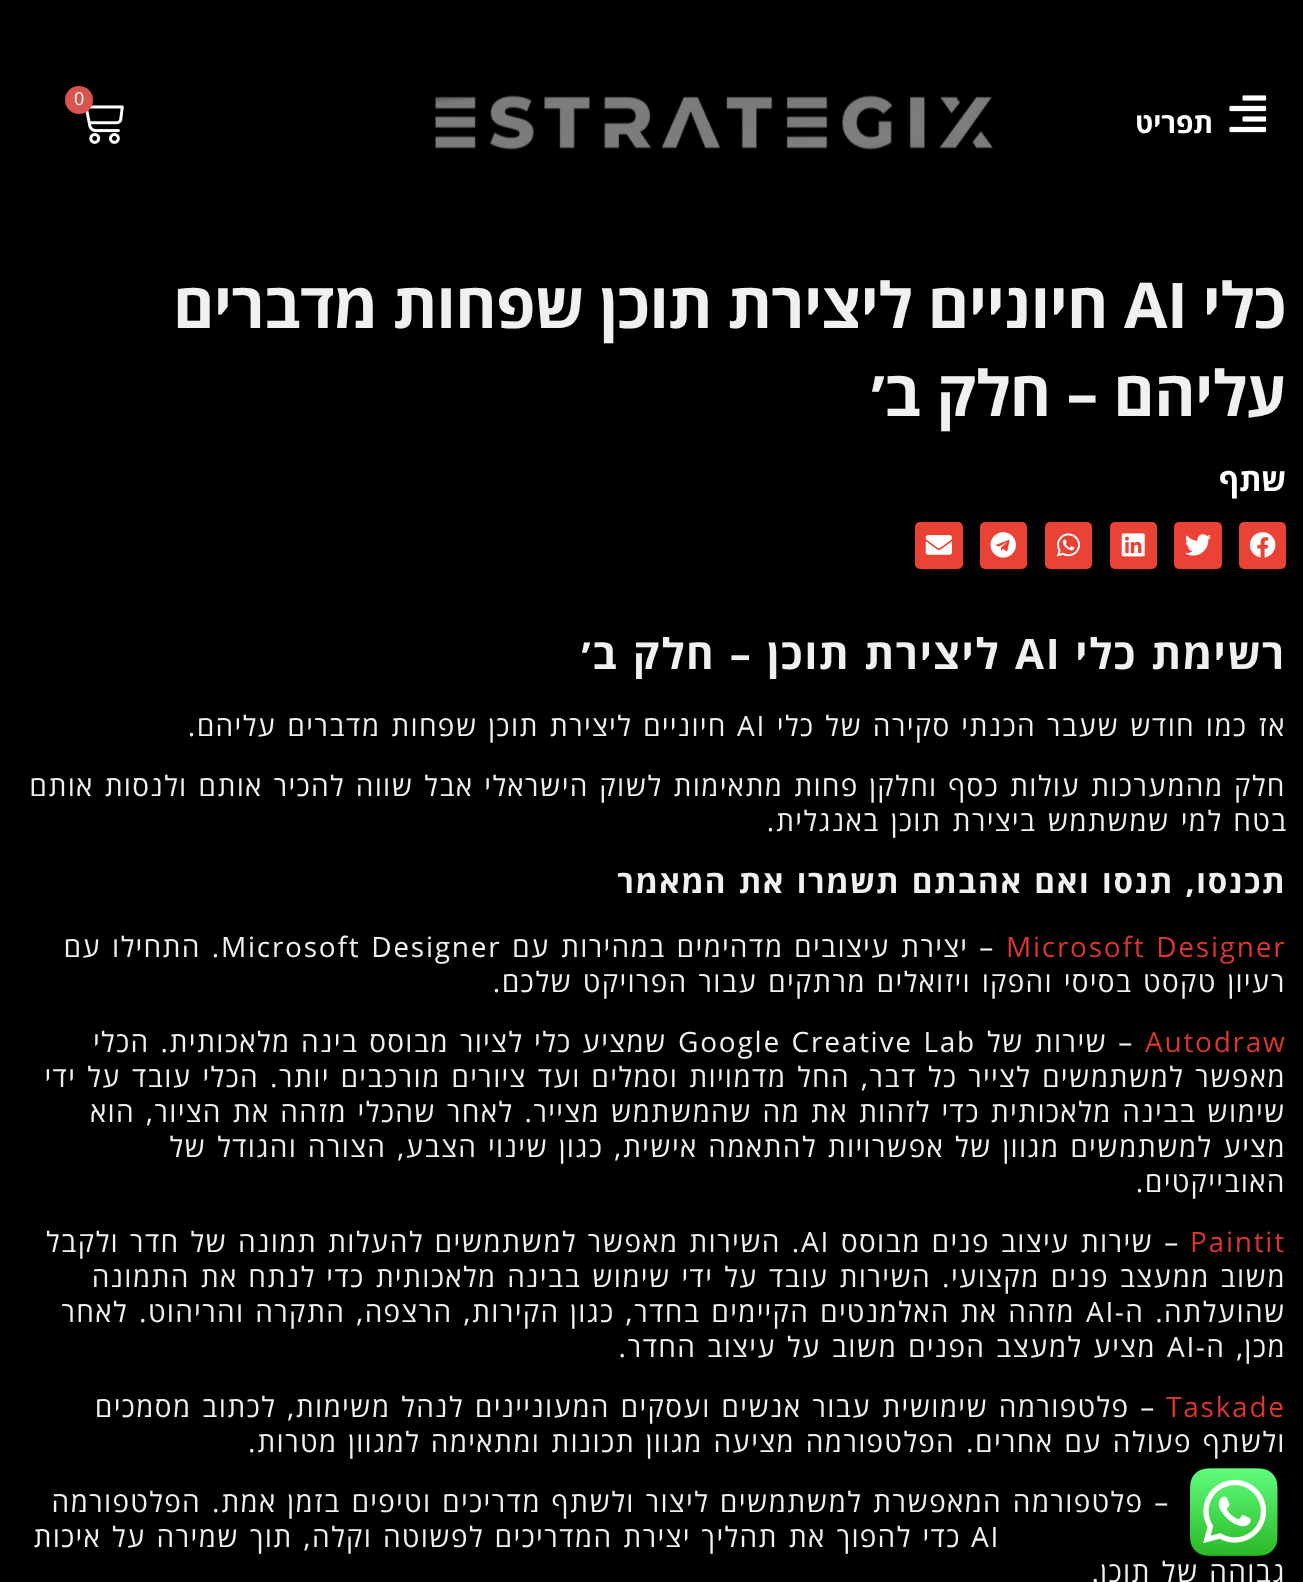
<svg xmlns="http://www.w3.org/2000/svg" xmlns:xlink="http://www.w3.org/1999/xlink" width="1303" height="1582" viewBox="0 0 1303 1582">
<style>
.cls-1{font:bold 28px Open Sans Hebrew;direction:rtl;fill:#ffffff}
.cls-2{font:18px Open Sans Hebrew;fill:#ffffff}
.cls-3{font:bold 63px Open Sans Hebrew;letter-spacing:-0.5px;direction:rtl;fill:#f0f0f0}
.cls-4{font:bold 63px Open Sans Hebrew;letter-spacing:-0.5px;fill:#f0f0f0}
.cls-5{font:bold 31.5px Open Sans Hebrew;direction:rtl;fill:#ffffff}
.cls-6{font:bold 42px Open Sans Hebrew;letter-spacing:1.75px;direction:rtl;fill:#f0f0f0}
.cls-7{font:bold 42px Open Sans Hebrew;letter-spacing:1.75px;fill:#f0f0f0}
.cls-8{font:28px Open Sans Hebrew;letter-spacing:1.75px;direction:rtl;fill:#f0f0f0}
.cls-9{font:28px Open Sans Hebrew;letter-spacing:1.75px;fill:#f0f0f0}
.cls-10{font:bold 31.5px Open Sans Hebrew;letter-spacing:1.75px;direction:rtl;fill:#f0f0f0}
.cls-11{font:28px Open Sans Hebrew;letter-spacing:1.75px;fill:#d93632}
</style>
<rect width="100%" height="100%" fill="#000000"/>
<image xlink:href="image0.png" x="1229" y="95" width="38" height="38"/>
<image xlink:href="image1.png" x="435" y="95" width="558" height="55"/>
<image xlink:href="image2.png" x="85" y="105" width="39" height="39"/>
<circle fill="#d9534f" cx="79" cy="100" r="14"/>
<rect fill="#ea4335" x="1239" y="522" width="47" height="47" rx="5"/>
<image xlink:href="image3.png" x="1249" y="532" width="27" height="26"/>
<rect fill="#ea4335" x="1174" y="522" width="48" height="47" rx="5"/>
<image xlink:href="image4.png" x="1185" y="534" width="26" height="22"/>
<rect fill="#ea4335" x="1110" y="522" width="47" height="47" rx="5"/>
<image xlink:href="image5.png" x="1121" y="533" width="24" height="24"/>
<rect fill="#ea4335" x="1045" y="522" width="47" height="47" rx="5"/>
<image xlink:href="image6.png" x="1057" y="533" width="23" height="24"/>
<rect fill="#ea4335" x="980" y="522" width="47" height="47" rx="5"/>
<image xlink:href="image7.png" x="990" y="532" width="26" height="26"/>
<rect fill="#ea4335" x="915" y="522" width="48" height="47" rx="5"/>
<image xlink:href="image8.png" x="925" y="535" width="27" height="20"/>
<image xlink:href="image9.png" x="1190" y="1468" width="88" height="88"/>
<text class="cls-1" x="1213" y="133">תפריט</text>
<text class="cls-2" x="74" y="105">0</text>
<text class="cls-3" x="1286" y="328">כלי</text>
<text class="cls-4" x="1124" y="328">AI</text>
<text class="cls-3" x="1108" y="328">חיוניים ליצירת תוכן שפחות מדברים</text>
<text class="cls-3" x="1286" y="416">עליהם – חלק ב׳</text>
<text class="cls-5" x="1286" y="491">שתף</text>
<text class="cls-6" x="1286" y="669" word-spacing="1.75">רשימת כלי</text>
<text class="cls-7" x="1015" y="669">AI</text>
<text class="cls-6" x="1000" y="669" word-spacing="1.75">ליצירת תוכן – חלק ב׳</text>
<text class="cls-8" x="1286" y="736" word-spacing="1.75">אז כמו חודש שעבר הכנתי סקירה של כלי</text>
<text class="cls-9" x="737" y="736">AI</text>
<text class="cls-8" x="727" y="736" word-spacing="1.75">חיוניים ליצירת תוכן שפחות מדברים עליהם.</text>
<text class="cls-8" x="1286" y="796" word-spacing="1.75">חלק מהמערכות עולות כסף וחלקן פחות מתאימות לשוק הישראלי אבל שווה להכיר אותם ולנסות אותם</text>
<text class="cls-8" x="1288" y="831" word-spacing="2">בטח למי שמשתמש ביצירת תוכן באנגלית.</text>
<text class="cls-10" x="1286" y="893" word-spacing="1.75">תכנסו, תנסו ואם אהבתם תשמרו את המאמר</text>
<text class="cls-11" x="1006" y="957" word-spacing="1.75">Microsoft Designer</text>
<text class="cls-8" x="995" y="957" word-spacing="1.75">– יצירת עיצובים מדהימים במהירות עם</text>
<text class="cls-9" x="221" y="957" word-spacing="1.75">Microsoft Designer</text>
<text class="cls-8" x="221" y="957" word-spacing="1.75">. התחילו עם</text>
<text class="cls-8" x="1286" y="992" word-spacing="1.75">רעיון טקסט בסיסי והפקו ויזואלים מרתקים עבור הפרויקט שלכם.</text>
<text class="cls-11" x="1145" y="1052">Autodraw</text>
<text class="cls-8" x="1134" y="1052" word-spacing="1.75">– שירות של</text>
<text class="cls-9" x="678" y="1052" word-spacing="1.75">Google Creative Lab</text>
<text class="cls-8" x="667" y="1052" word-spacing="1.75">שמציע כלי לציור מבוסס בינה מלאכותית. הכלי</text>
<text class="cls-8"><tspan x="1286" y="1087" word-spacing="1.75">מאפשר למשתמשים לצייר כל דבר, החל מדמויות וסמלים ועד ציורים מורכבים יותר. הכלי עובד על ידי</tspan><tspan x="1286" y="1122" word-spacing="1.75">שימוש בבינה מלאכותית כדי לזהות את מה שהמשתמש מצייר. לאחר שהכלי מזהה את הציור, הוא</tspan><tspan x="1286" y="1157" word-spacing="1.75">מציע למשתמשים מגוון של אפשרויות להתאמה אישית, כגון שינוי הצבע, הצורה והגודל של</tspan><tspan x="1286" y="1192">האובייקטים.</tspan></text>
<text class="cls-11" x="1190" y="1252">Paintit</text>
<text class="cls-8" x="1180" y="1252" word-spacing="1.75">– שירות עיצוב פנים מבוסס</text>
<text class="cls-9" x="801" y="1252">AI</text>
<text class="cls-8" x="801" y="1252" word-spacing="1.75">. השירות מאפשר למשתמשים להעלות תמונה של חדר ולקבל</text>
<text class="cls-8"><tspan x="1286" y="1287" word-spacing="1.75">משוב ממעצב פנים מקצועי. השירות עובד על ידי שימוש בבינה מלאכותית כדי לנתח את התמונה</tspan><tspan x="1286" y="1322" word-spacing="1.75">שהועלתה. ה-</tspan></text>
<text class="cls-9" x="1086" y="1322">AI</text>
<text class="cls-8" x="1075" y="1322" word-spacing="1.75">מזהה את האלמנטים הקיימים בחדר, כגון הקירות, הרצפה, התקרה והריהוט. לאחר</text>
<text class="cls-8" x="1286" y="1357" word-spacing="1.75">מכן, ה-</text>
<text class="cls-9" x="1167" y="1357">AI</text>
<text class="cls-8" x="1156" y="1357" word-spacing="1.75">מציע למעצב הפנים משוב על עיצוב החדר.</text>
<text class="cls-11" x="1166" y="1417">Taskade</text>
<text class="cls-8" x="1156" y="1417" word-spacing="1.75">– פלטפורמה שימושית עבור אנשים ועסקים המעוניינים לנהל משימות, לכתוב מסמכים</text>
<text class="cls-8" x="1286" y="1452" word-spacing="1.75">ולשתף פעולה עם אחרים. הפלטפורמה מציעה מגוון תכונות ומתאימה למגוון מטרות.</text>
<text class="cls-8" x="1170" y="1512" word-spacing="1.75">– פלטפורמה המאפשרת למשתמשים ליצור ולשתף מדריכים וטיפים בזמן אמת. הפלטפורמה</text>
<text class="cls-9" x="971" y="1547">AI</text>
<text class="cls-8" x="961" y="1547" word-spacing="1.75">כדי להפוך את תהליך יצירת המדריכים לפשוטה וקלה, תוך שמירה על איכות</text>
<text class="cls-8" x="1286" y="1582" word-spacing="1.75">גבוהה של תוכן.</text>
</svg>
